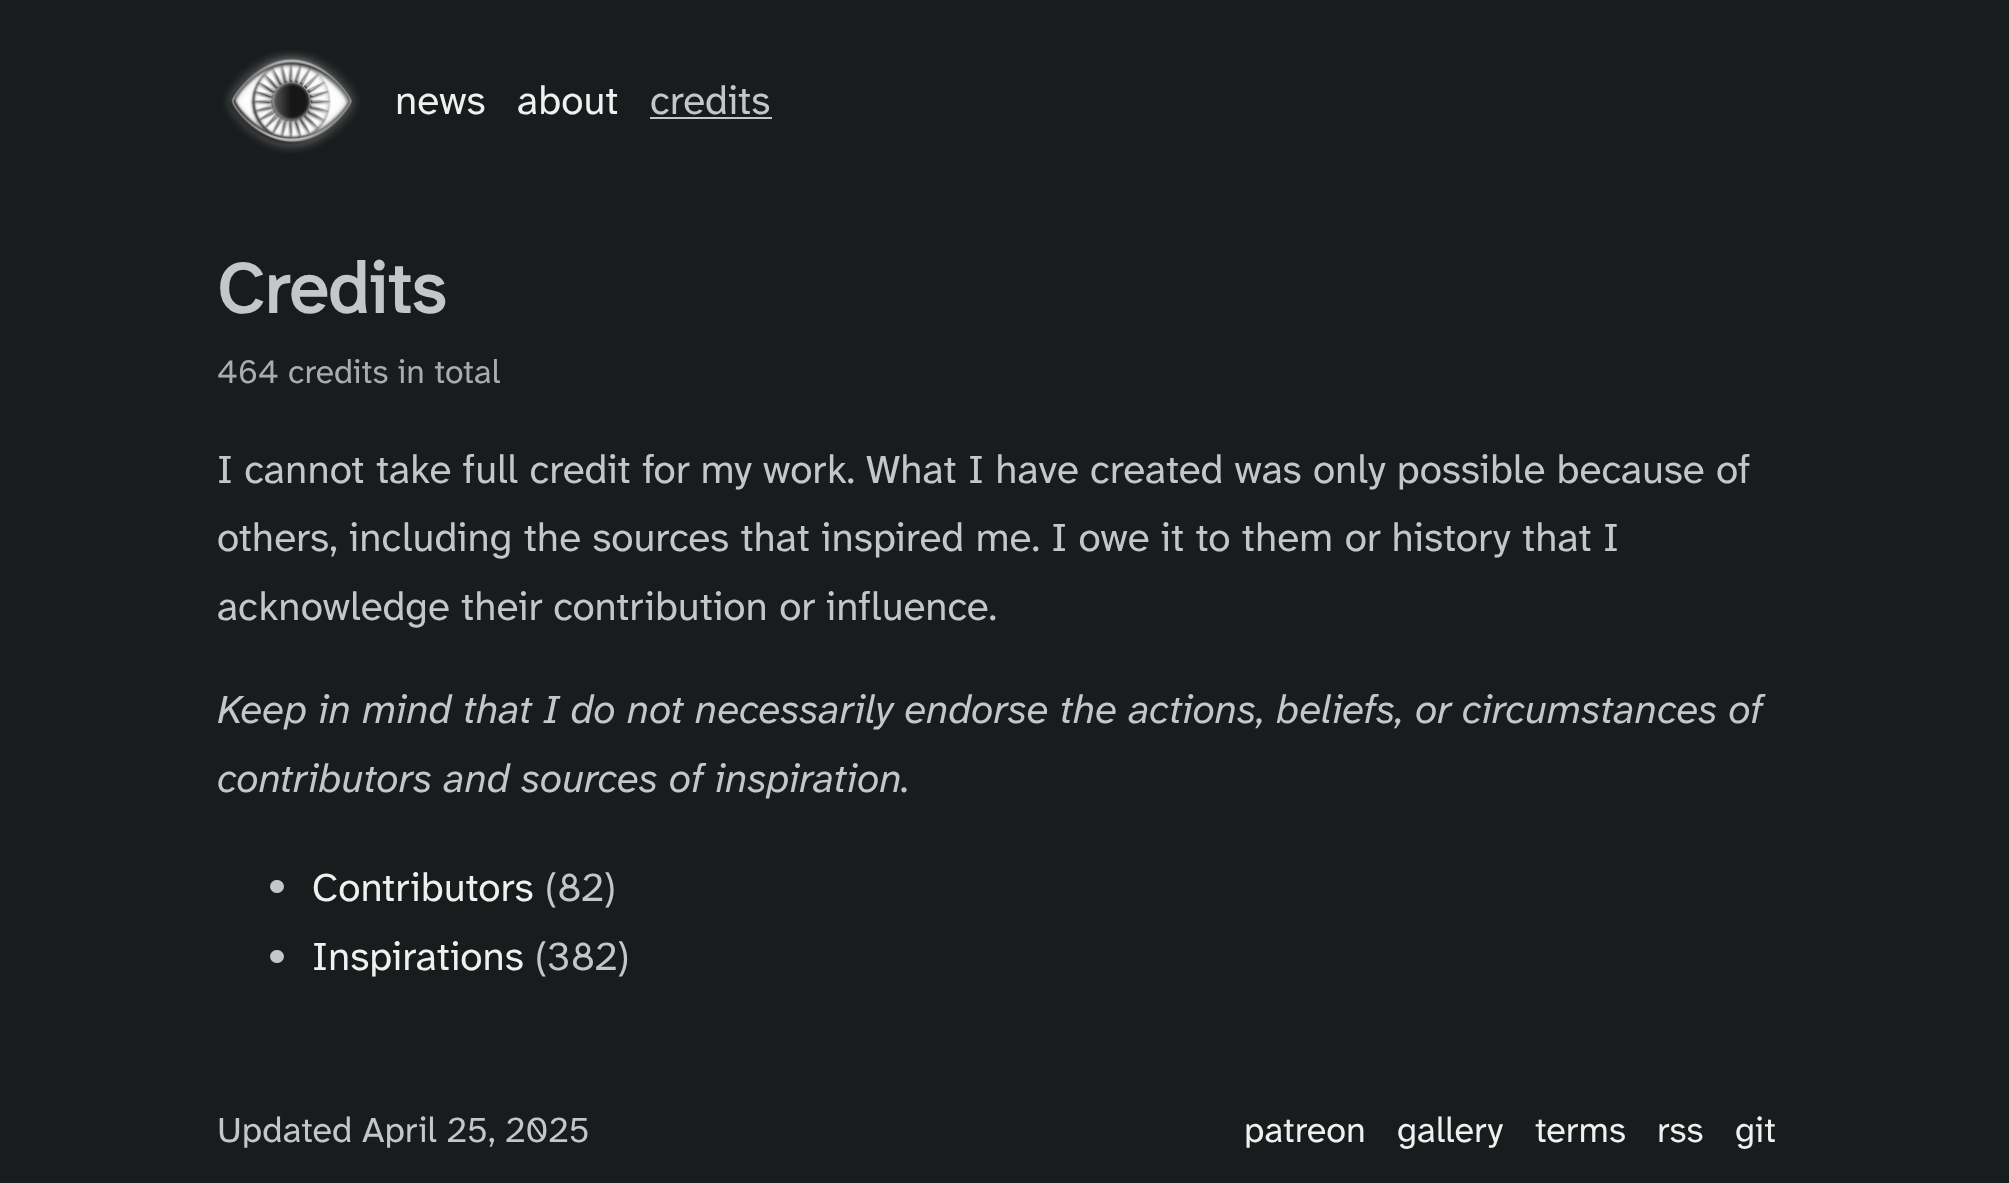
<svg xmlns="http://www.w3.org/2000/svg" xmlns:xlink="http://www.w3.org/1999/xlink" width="2009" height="1183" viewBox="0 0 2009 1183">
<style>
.cls-1{font:40.5px Atkinson Hyperlegible Next;fill:#eff1f1}
.cls-2{font:40.5px Atkinson Hyperlegible Next;fill:#c4c7c7}
.cls-3{font:bold 72px Atkinson Hyperlegible Next;letter-spacing:0.5px;fill:#c4c7c7}
.cls-4{font:33.75px Atkinson Hyperlegible Next;fill:#a9acac}
.cls-5{font:italic 40.5px Atkinson Hyperlegible Next;fill:#c4c7c7}
.cls-6{font:36px Atkinson Hyperlegible Next;fill:#c4c7c7}
.cls-7{font:36px Atkinson Hyperlegible Next;fill:#eff1f1}
</style>
<rect width="100%" height="100%" fill="#191c1d"/>
<image xlink:href="image0.png" x="223" y="50" width="137" height="103"/>
<rect fill="#c4c7c7" x="650" y="117" width="122" height="2"/>
<rect fill="#c4c7c7" x="270" y="880" width="14" height="13" rx="6.5"/>
<rect fill="#c4c7c7" x="270" y="950" width="14" height="13" rx="6.5"/>
<text class="cls-1" x="395" y="114">news</text>
<text class="cls-1" x="517" y="114">about</text>
<text class="cls-2" x="650" y="114">credits</text>
<text class="cls-3" x="217" y="313">Credits</text>
<text class="cls-4" x="217" y="383">464 credits in total</text>
<text class="cls-2"><tspan x="217" y="483">I cannot take full credit for my work. What I have created was only possible because of</tspan><tspan x="217" y="551">others, including the sources that inspired me. I owe it to them or history that I</tspan><tspan x="217" y="620">acknowledge their contribution or influence.</tspan></text>
<text class="cls-5"><tspan x="217" y="723">Keep in mind that I do not necessarily endorse the actions, beliefs, or circumstances of</tspan><tspan x="217" y="792">contributors and sources of inspiration.</tspan></text>
<text class="cls-1" x="312" y="901">Contributors</text>
<text class="cls-2" x="545" y="901">(82)</text>
<text class="cls-1" x="312" y="970">Inspirations</text>
<text class="cls-2" x="535" y="970">(382)</text>
<text class="cls-6" x="217" y="1142">Updated April 25, 2025</text>
<text class="cls-7" x="1244" y="1142">patreon</text>
<text class="cls-7" x="1397" y="1142">gallery</text>
<text class="cls-7" x="1535" y="1142">terms</text>
<text class="cls-7" x="1657" y="1142">rss</text>
<text class="cls-7" x="1735" y="1142">git</text>
</svg>
